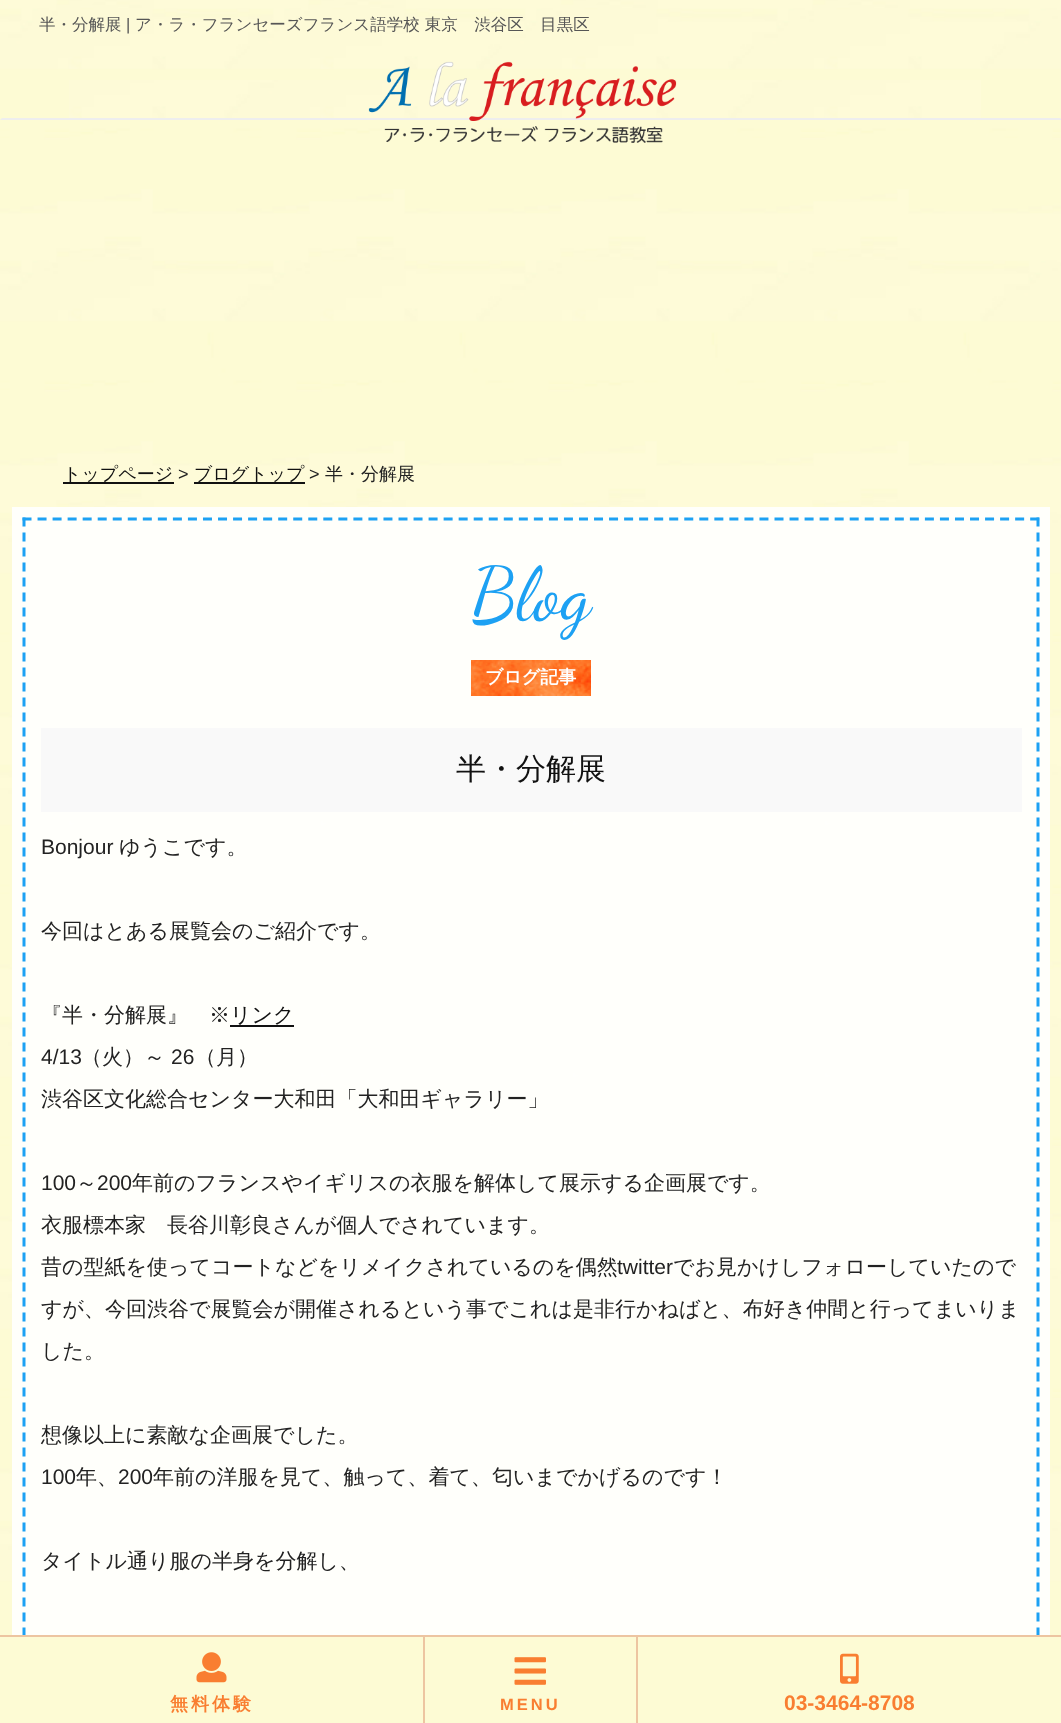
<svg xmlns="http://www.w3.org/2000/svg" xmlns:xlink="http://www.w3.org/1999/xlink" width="1061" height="1723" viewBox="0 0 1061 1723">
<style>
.cls-1{font:500 16.5px WenQuanYi Zen Hei;fill:#565656}
.cls-2{font:16.5px Liberation Sans;fill:#565656}
.cls-3{font:500 18px WenQuanYi Zen Hei;fill:#111111}
.cls-4{font:18px Liberation Sans;fill:#222222}
.cls-5{font:500 18px WenQuanYi Zen Hei;fill:#222222}
.cls-6{font:75px Dancing Script;fill:#1da1f3}
.cls-7{font:bold 18px WenQuanYi Zen Hei;fill:#ffffff}
.cls-8{font:500 30px WenQuanYi Zen Hei;fill:#111111}
.cls-9{font:21px Liberation Sans;fill:#222222}
.cls-10{font:500 21px WenQuanYi Zen Hei;fill:#222222}
.cls-11{font:500 21px WenQuanYi Zen Hei;fill:#111111}
.cls-12{font:bold 18px WenQuanYi Zen Hei;letter-spacing:3px;fill:#f97e31}
.cls-13{font:bold 16.5px Liberation Sans;letter-spacing:3px;fill:#f97e31}
.cls-14{font:bold 21px Liberation Sans;fill:#f97e31}
</style>
<rect width="100%" height="100%" fill="#ffffff"/>
<image xlink:href="image0.png" x="0" y="0" width="1061" height="1635"/>
<image xlink:href="image1.png" x="69" y="80" width="912" height="38"/>
<path fill="#eeeeee" d="M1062 120H0L2 118H1060Z"/>
<image xlink:href="image2.png" x="368" y="61" width="309" height="82"/>
<rect fill="#111111" x="63" y="482" width="111" height="2"/>
<rect fill="#111111" x="194" y="482" width="111" height="2"/>
<rect fill="none" stroke="#ffffff" stroke-opacity="0.9" stroke-width="11" x="17.5" y="512.5" width="1027" height="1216"/>
<rect fill="#ffffff" fill-opacity="0.9" x="23" y="518" width="1017" height="1117"/>
<path fill="none" stroke="#1da1f3" stroke-width="3" stroke-dasharray="9 6.04" d="M22.5 519H1039.5"/>
<path fill="none" stroke="#1da1f3" stroke-width="3" stroke-dasharray="9 6" d="M1038 517.5V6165"/>
<path fill="none" stroke="#1da1f3" stroke-width="3" stroke-dasharray="9 6" d="M24 517.5V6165"/>
<image xlink:href="image3.png" x="471" y="660" width="120" height="36"/>
<rect fill="#f9f9f9" x="41" y="728" width="981" height="84"/>
<rect fill="#111111" x="230" y="1025" width="64" height="2"/>
<rect fill="#fdfbd4" x="0" y="1637" width="1061" height="86"/>
<rect fill="#edc5a1" x="0" y="1635" width="1061" height="2"/>
<rect fill="#edc5a1" x="423" y="1637" width="2" height="86"/>
<image xlink:href="image4.png" x="196" y="1652" width="31" height="31"/>
<rect fill="#edc5a1" x="636" y="1637" width="2" height="86"/>
<image xlink:href="image5.png" x="514" y="1657" width="32" height="28"/>
<image xlink:href="image6.png" x="840" y="1653" width="19" height="31"/>
<text class="cls-1" x="39" y="30">半・分解展</text>
<text class="cls-2" x="126" y="30">|</text>
<text class="cls-1" x="135" y="30">ア・ラ・フランセーズフランス語学校 東京　渋谷区　目黒区</text>
<text class="cls-3" x="63" y="480">トップページ</text>
<text class="cls-4" x="178" y="480">&gt;</text>
<text class="cls-3" x="194" y="480">ブログトップ</text>
<text class="cls-4" x="309" y="480">&gt;</text>
<text class="cls-5" x="325" y="480">半・分解展</text>
<text class="cls-6" x="471" y="619">Blog</text>
<text class="cls-7" x="485" y="683">ブログ記事</text>
<text class="cls-8" x="456" y="779">半・分解展</text>
<text class="cls-9" x="41" y="854">Bonjour</text>
<text class="cls-10" x="119" y="854">ゆうこです。</text>
<text class="cls-10" x="41" y="938">今回はとある展覧会のご紹介です。</text>
<text class="cls-10" x="41" y="1022">『半・分解展』　※</text>
<text class="cls-11" x="230" y="1022">リンク</text>
<text class="cls-9" x="41" y="1064">4/13</text>
<text class="cls-10" x="81" y="1064">（火）～</text>
<text class="cls-9" x="171" y="1064">26</text>
<text class="cls-10" x="195" y="1064">（月）</text>
<text class="cls-10" x="41" y="1106">渋谷区文化総合センター大和田「大和田ギャラリー」</text>
<text class="cls-9" x="41" y="1190">100</text>
<text class="cls-10" x="76" y="1190">～</text>
<text class="cls-9" x="97" y="1190">200</text>
<text class="cls-10" x="132" y="1190">年前のフランスやイギリスの衣服を解体して展示する企画展です。</text>
<text class="cls-10" x="41" y="1232">衣服標本家　長谷川彰良さんが個人でされています。</text>
<text class="cls-10" x="41" y="1274">昔の型紙を使ってコートなどをリメイクされているのを偶然</text>
<text class="cls-9" x="617" y="1274">twitter</text>
<text class="cls-10" x="673" y="1274">でお見かけしフォローしていたので</text>
<text class="cls-10" x="41" y="1316">すが、今回渋谷で展覧会が開催されるという事でこれは是非行かねばと、布好き仲間と行ってまいりま</text>
<text class="cls-10" x="41" y="1358">した。</text>
<text class="cls-10" x="41" y="1442">想像以上に素敵な企画展でした。</text>
<text class="cls-9" x="41" y="1484">100</text>
<text class="cls-10" x="76" y="1484">年、</text>
<text class="cls-9" x="118" y="1484">200</text>
<text class="cls-10" x="153" y="1484">年前の洋服を見て、触って、着て、匂いまでかげるのです！</text>
<text class="cls-10" x="41" y="1568">タイトル通り服の半身を分解し、</text>
<text class="cls-12" x="170" y="1710">無料体験</text>
<text class="cls-13" x="500" y="1710">MENU</text>
<text class="cls-14" x="784" y="1710">03-3464-8708</text>
</svg>
